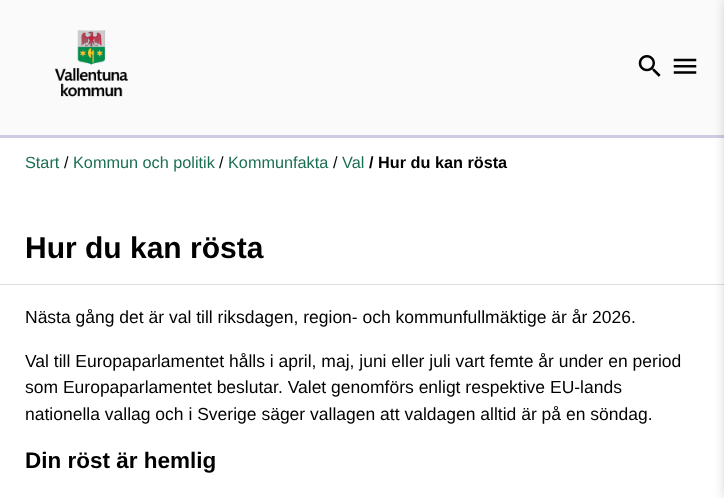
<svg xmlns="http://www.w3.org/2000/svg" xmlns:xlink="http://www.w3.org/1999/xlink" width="724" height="498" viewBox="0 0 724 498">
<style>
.cls-1{font:16.25px Liberation Sans;fill:#1a6f51}
.cls-2{font:16.25px Liberation Sans;fill:#000000}
.cls-3{font:bold 16.25px Liberation Sans;fill:#000000}
.cls-4{font:bold 30px Liberation Sans;fill:#000000}
.cls-5{font:17.5px Liberation Sans;fill:#000000}
.cls-6{font:bold 22.5px Liberation Sans;fill:#000000}
</style>
<rect width="100%" height="100%" fill="#ffffff"/>
<rect fill="#fafafa" x="0" y="0" width="724" height="135"/>
<rect fill="#cfcbe4" x="0" y="135" width="724" height="3"/>
<image xlink:href="image0.png" x="54" y="30" width="74" height="67"/>
<image xlink:href="image1.png" x="638" y="55" width="23" height="22"/>
<image xlink:href="image2.png" x="673" y="58" width="24" height="16"/>
<rect fill="#dddddd" x="0" y="284" width="724" height="1"/>
<rect fill="#000000" fill-opacity="0.4" filter="blur(7.5px)" x="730" y="0" width="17" height="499"/>
<text class="cls-1" x="25" y="168">Start</text>
<text class="cls-2" x="64" y="168">/</text>
<text class="cls-1" x="73" y="168">Kommun och politik</text>
<text class="cls-2" x="219" y="168">/</text>
<text class="cls-1" x="228" y="168">Kommunfakta</text>
<text class="cls-2" x="333" y="168">/</text>
<text class="cls-1" x="342" y="168">Val</text>
<text class="cls-3" x="369" y="168">/ Hur du kan rösta</text>
<text class="cls-4" x="25" y="258">Hur du kan rösta</text>
<text class="cls-5" x="25" y="323">Nästa gång det är val till riksdagen, region- och kommunfullmäktige är år 2026.</text>
<text class="cls-5"><tspan x="25" y="367">Val till Europaparlamentet hålls i april, maj, juni eller juli vart femte år under en period</tspan><tspan x="25" y="393">som Europaparlamentet beslutar. Valet genomförs enligt respektive EU-lands</tspan><tspan x="25" y="420">nationella vallag och i Sverige säger vallagen att valdagen alltid är på en söndag.</tspan></text>
<text class="cls-6" x="25" y="468">Din röst är hemlig</text>
</svg>
